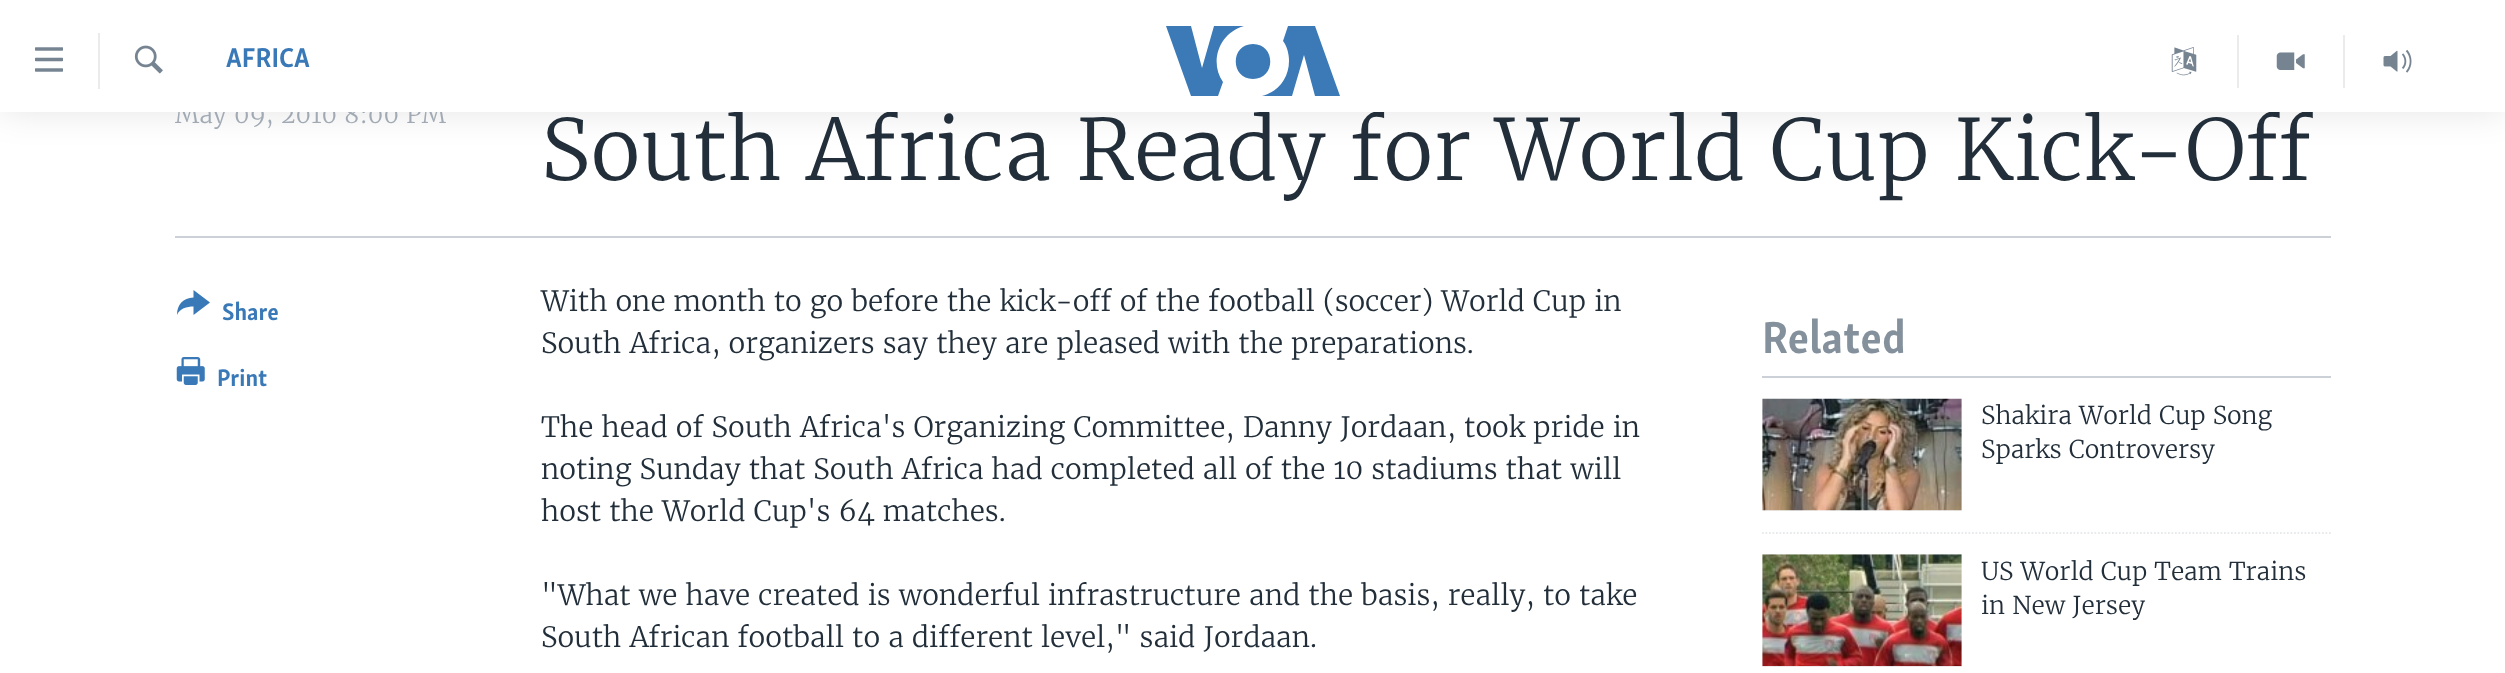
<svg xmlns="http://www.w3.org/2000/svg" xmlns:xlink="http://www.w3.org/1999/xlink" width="2505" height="673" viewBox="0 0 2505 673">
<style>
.cls-1{font:300 24.5px Merriweather;fill:#a1aab4}
.cls-2{font:300 84px Merriweather;fill:#222f3a}
.cls-3{font:bold 28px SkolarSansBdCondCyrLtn;fill:#3a79b7}
.cls-4{font:bold 24.5px SkolarSansBdCondCyrLtn;fill:#3a79b7}
.cls-5{font:300 28px Merriweather;fill:#222f3a}
.cls-6{font:bold 46px SkolarSansBdCondCyrLtn;fill:#84919d}
.cls-7{font:300 24.5px Merriweather;fill:#222f3a}
</style>
<rect width="100%" height="100%" fill="#ffffff"/>
<rect fill="#000000" fill-opacity="0.1" filter="blur(17.5px)" x="0" y="0" width="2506" height="112"/>
<rect fill="#cbd1d6" x="175" y="236" width="2156" height="2"/>
<path fill="#3a79b7" d="M177 315C177 304.5 183 298 193.5 297.5V290L210 302.5L193.5 315V306.5C187 306.5 179.5 308.5 177 315Z"/>
<image xlink:href="image5.png" x="176" y="357" width="29" height="28"/>
<rect fill="#cbd1d6" x="1762" y="376" width="569" height="2"/>
<rect fill="#f6f7f8" x="1762" y="399" width="200" height="112"/>
<image xlink:href="image6.png" x="1762" y="398" width="200" height="113"/>
<path fill="none" stroke="#e8eaec" stroke-width="1.8" stroke-dasharray="1.75 1.75" d="M1762 533H2331"/>
<rect fill="#f6f7f8" x="1762" y="555" width="200" height="112"/>
<image xlink:href="image7.png" x="1762" y="554" width="200" height="113"/>
<text class="cls-1" x="175" y="123">May 09, 2010 8:00 PM</text>
<text class="cls-2" x="541" y="180">South Africa Ready for World Cup Kick-Off</text>
<rect fill="#ffffff" x="0" y="0" width="2505" height="112"/>
<image xlink:href="image0.png" x="35" y="47" width="28" height="25"/>
<path fill="#3b79b7" d="M1223 82L1218 96H1191L1166 26H1191L1202 68L1214 26H1244C1219 33 1209 62 1223 82ZM1253 44C1230 44 1230 79 1253 79C1276 79 1276 44 1253 44ZM1289 61C1289 78 1278 92 1262 96H1292L1304 55L1315 96H1340L1315 26H1288L1283 41C1287 46 1289 54 1289 61Z"/>
<image xlink:href="image1.png" x="134" y="45" width="29" height="29"/>
<rect fill="#ebebeb" x="98" y="33" width="2" height="56"/>
<text class="cls-3" x="226" y="67">AFRICA</text>
<image xlink:href="image2.png" x="2171" y="47" width="26" height="29"/>
<rect fill="#ebebeb" x="2237" y="35" width="2" height="53"/>
<image xlink:href="image3.png" x="2276" y="52" width="29" height="18"/>
<rect fill="#ebebeb" x="2343" y="35" width="2" height="53"/>
<image xlink:href="image4.png" x="2383" y="49" width="29" height="24"/>
<text class="cls-4" x="222" y="320">Share</text>
<text class="cls-4" x="217" y="386">Print</text>
<text class="cls-5"><tspan x="541" y="311">With one month to go before the kick-off of the football (soccer) World Cup in</tspan><tspan x="541" y="353">South Africa, organizers say they are pleased with the preparations.</tspan></text>
<text class="cls-5"><tspan x="541" y="437">The head of South Africa's Organizing Committee, Danny Jordaan, took pride in</tspan><tspan x="541" y="479">noting Sunday that South Africa had completed all of the 10 stadiums that will</tspan><tspan x="541" y="521">host the World Cup's 64 matches.</tspan></text>
<text class="cls-5"><tspan x="541" y="605">"What we have created is wonderful infrastructure and the basis, really, to take</tspan><tspan x="541" y="647">South African football to a different level," said Jordaan.</tspan></text>
<text class="cls-6" x="1762" y="353">Related</text>
<text class="cls-7"><tspan x="1981" y="424">Shakira World Cup Song</tspan><tspan x="1981" y="458">Sparks Controversy</tspan></text>
<text class="cls-7"><tspan x="1981" y="580">US World Cup Team Trains</tspan><tspan x="1981" y="614">in New Jersey</tspan></text>
</svg>
